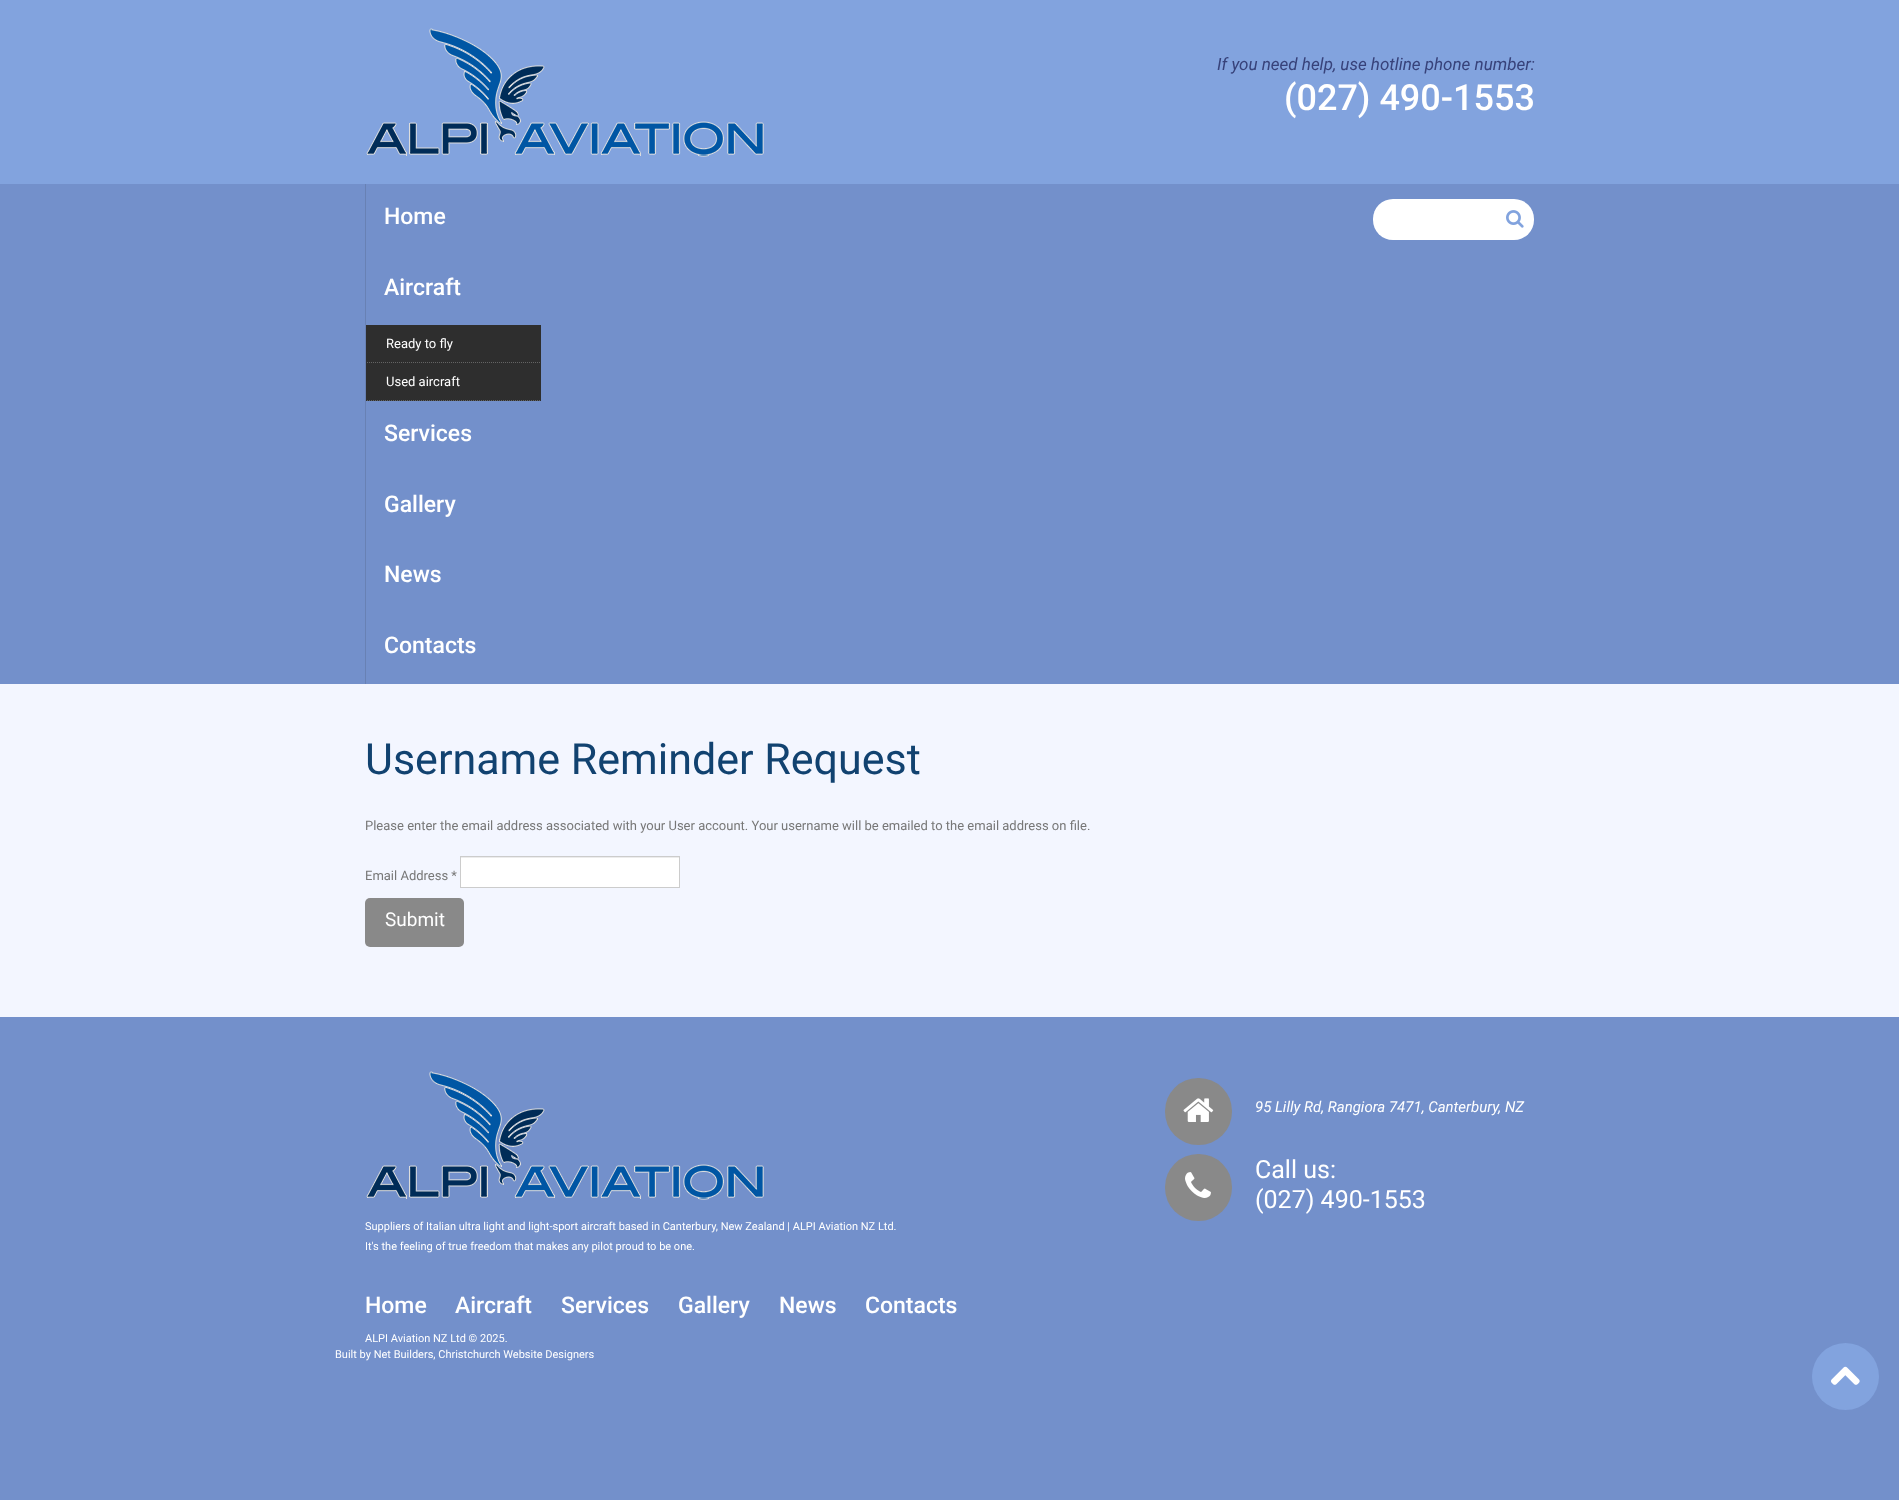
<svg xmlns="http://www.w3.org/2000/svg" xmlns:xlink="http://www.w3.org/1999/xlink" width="1899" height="1500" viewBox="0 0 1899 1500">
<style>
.cls-1{font:italic 17px Roboto;fill:#37427a}
.cls-2{font:500 36px Roboto;fill:#ffffff}
.cls-3{font:500 23px Roboto;fill:#ffffff}
.cls-4{font:13px Roboto;fill:#ffffff}
.cls-5{font:43px Roboto;fill:#114270}
.cls-6{font:13px Roboto;fill:#777777}
.cls-7{font:19px Roboto;fill:#ffffff}
.cls-8{font:italic 15px Roboto;fill:#ffffff}
.cls-9{font:25px Roboto;fill:#ffffff}
.cls-10{font:11px Roboto;fill:#ffffff}
</style>
<rect width="100%" height="100%" fill="#7390cb"/>
<rect fill="#82a3de" x="0" y="0" width="1899" height="184"/>
<image xlink:href="image0.png" x="366" y="28" width="398" height="129"/>
<rect fill="#6881b4" x="365" y="184" width="1" height="500"/>
<rect fill="#2e2e2e" x="366" y="325" width="175" height="76"/>
<image xlink:href="image1.png" x="367" y="362" width="173" height="1"/>
<image xlink:href="image1.png" x="367" y="400" width="173" height="1"/>
<rect fill="#ffffff" x="1373" y="199" width="161" height="41" rx="20"/>
<image xlink:href="image2.png" x="1506" y="210" width="18" height="18"/>
<rect fill="#f3f6ff" x="0" y="684" width="1899" height="333"/>
<rect fill="#ffffff" x="461" y="858" width="218" height="29"/>
<rect fill="#ececec" x="461" y="857" width="218" height="1"/>
<rect fill="none" stroke="#cccccc" x="460.5" y="856.5" width="219" height="31"/>
<rect fill="#898989" x="365" y="898" width="99" height="49" rx="5"/>
<rect fill="#898989" x="1165" y="1078" width="67" height="67" rx="33"/>
<image xlink:href="image3.png" x="1183" y="1098" width="31" height="24"/>
<rect fill="#898989" x="1165" y="1154" width="67" height="67" rx="33"/>
<image xlink:href="image4.png" x="1185" y="1172" width="26" height="26"/>
<image xlink:href="image5.png" x="366" y="1071" width="398" height="129"/>
<circle fill="#82a3de" cx="1845.5" cy="1376.5" r="33.5"/>
<image xlink:href="image6.png" x="1831" y="1366" width="29" height="19"/>
<text class="cls-1" x="1217" y="70">If you need help, use hotline phone number:</text>
<text class="cls-2" x="1284" y="110">(027) 490-1553</text>
<text class="cls-3" x="384" y="224">Home</text>
<text class="cls-3" x="384" y="295">Aircraft</text>
<text class="cls-4" x="386" y="348">Ready to fly</text>
<text class="cls-4" x="386" y="386">Used aircraft</text>
<text class="cls-3" x="384" y="441">Services</text>
<text class="cls-3" x="384" y="512">Gallery</text>
<text class="cls-3" x="384" y="582">News</text>
<text class="cls-3" x="384" y="653">Contacts</text>
<text class="cls-5" x="365" y="774">Username Reminder Request</text>
<text class="cls-6" x="365" y="830">Please enter the email address associated with your User account. Your username will be emailed to the email address on file.</text>
<text class="cls-6" x="365" y="880">Email Address *</text>
<text class="cls-7" x="385" y="926">Submit</text>
<text class="cls-8" x="1255" y="1112">95 Lilly Rd, Rangiora 7471, Canterbury, NZ</text>
<text class="cls-9"><tspan x="1255" y="1178">Call us:</tspan><tspan x="1255" y="1208">(027) 490-1553</tspan></text>
<text class="cls-10"><tspan x="365" y="1230">Suppliers of Italian ultra light and light-sport aircraft based in Canterbury, New Zealand | ALPI Aviation NZ Ltd.</tspan><tspan x="365" y="1250">It's the feeling of true freedom that makes any pilot proud to be one.</tspan></text>
<text class="cls-3" x="365" y="1313">Home</text>
<text class="cls-3" x="455" y="1313">Aircraft</text>
<text class="cls-3" x="561" y="1313">Services</text>
<text class="cls-3" x="678" y="1313">Gallery</text>
<text class="cls-3" x="779" y="1313">News</text>
<text class="cls-3" x="865" y="1313">Contacts</text>
<text class="cls-10" x="365" y="1342">ALPI Aviation NZ Ltd © 2025.</text>
<text class="cls-10" x="335" y="1358">Built by Net Builders, Christchurch Website Designers</text>
</svg>
